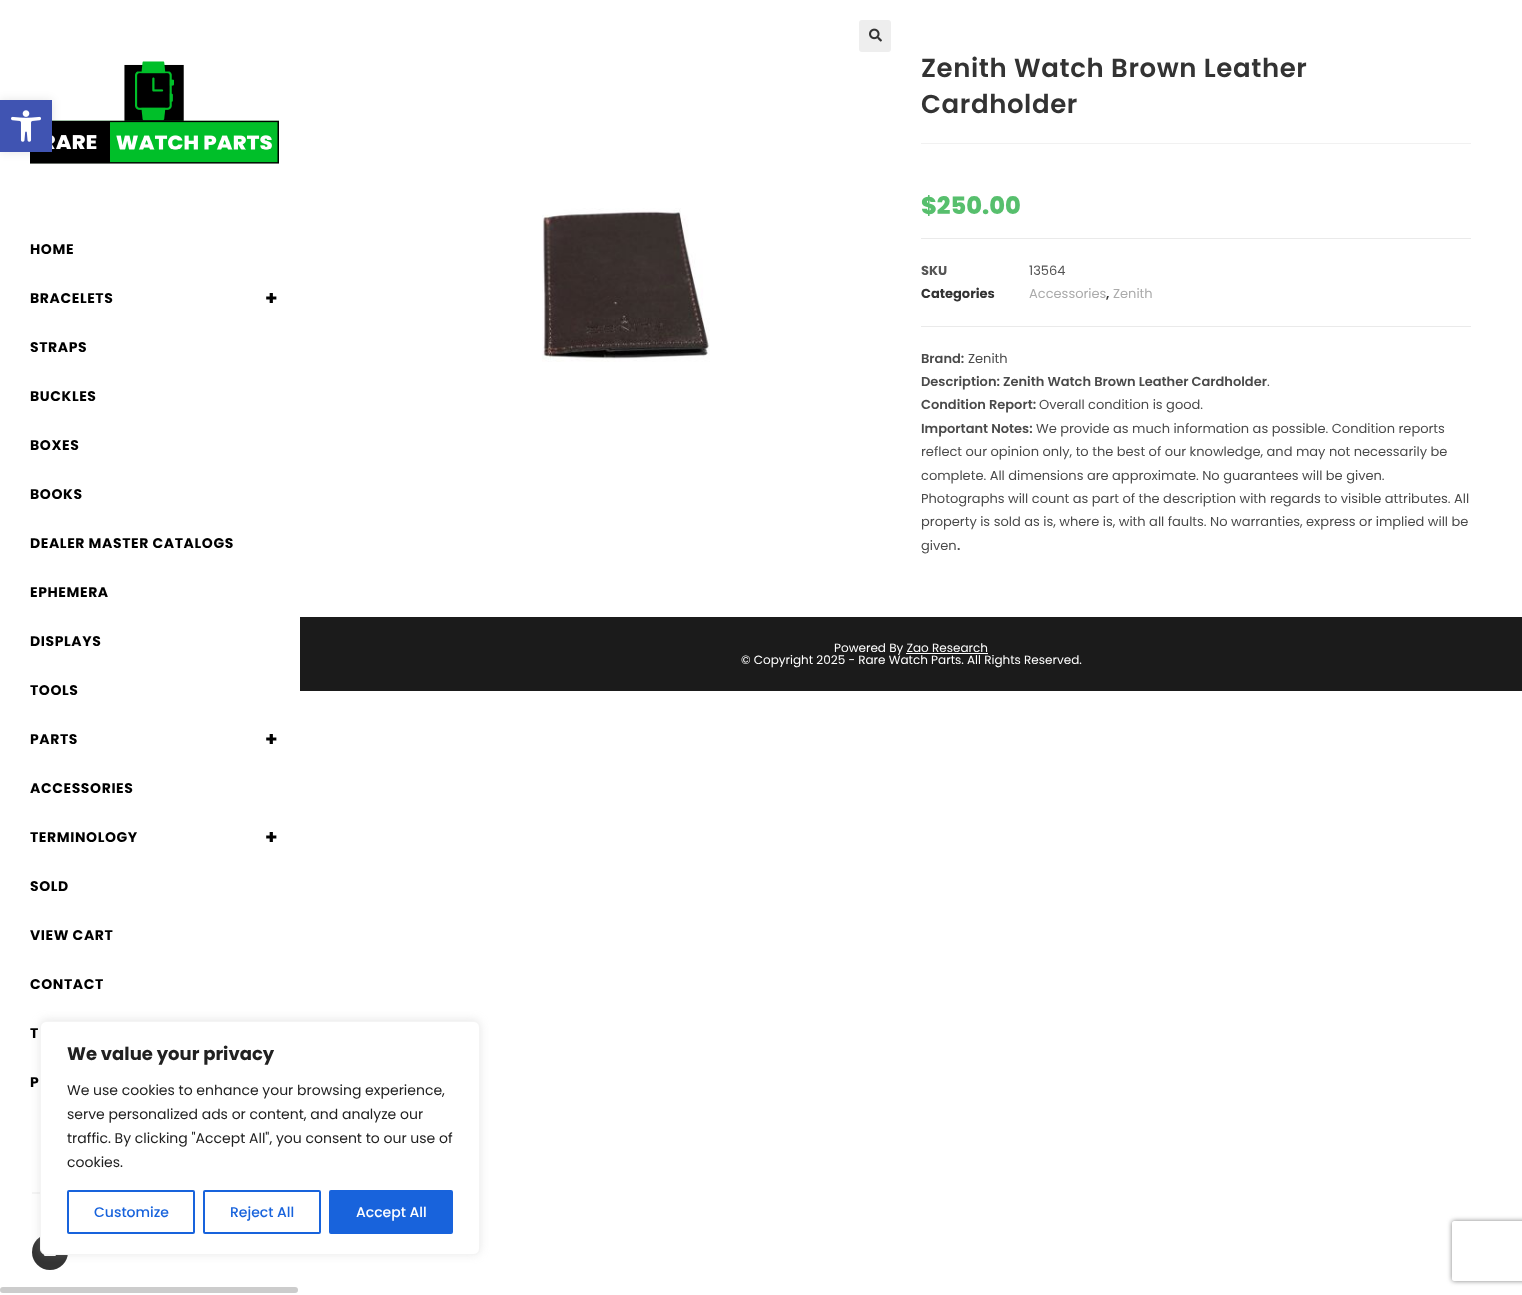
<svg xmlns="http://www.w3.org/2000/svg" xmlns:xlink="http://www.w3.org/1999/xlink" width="1522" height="1295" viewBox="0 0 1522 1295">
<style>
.cls-1{font:bold 14px Poppins;letter-spacing:0.6px;fill:#000000}
.cls-2{font:bold 20px Poppins;letter-spacing:0.6px;fill:#000000}
.cls-3{font:12px Poppins;fill:#ffffff}
.cls-4{font:600 26px Poppins;letter-spacing:0.6px;fill:#333333}
.cls-5{font:800 24px Poppins;fill:#57bf6d}
.cls-6{font:bold 13px Poppins;fill:#555555}
.cls-7{font:13px Poppins;fill:#555555}
.cls-8{font:bold 13px Poppins;fill:#333333}
.cls-9{font:13px Poppins;fill:#ababab}
.cls-10{font:600 13px Poppins;fill:#333333}
.cls-11{font:600 13px Poppins;fill:#4a4a4a}
.cls-12{font:13px Poppins;fill:#4a4a4a}
.cls-13{font:bold 18px Poppins;fill:#212121}
.cls-14{font:14px Poppins;fill:#212121}
.cls-15{font:500 14px Poppins;fill:#1863dc}
.cls-16{font:500 14px Poppins;fill:#ffffff}
</style>
<defs>
<clipPath id="clip1"><path d="M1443 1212H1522V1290H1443ZM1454 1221H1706C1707 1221 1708 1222 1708 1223V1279C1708 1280 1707 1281 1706 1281H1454C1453 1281 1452 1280 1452 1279V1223C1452 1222 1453 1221 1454 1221Z" clip-rule="evenodd"/></clipPath>
</defs>
<rect width="100%" height="100%" fill="#ffffff"/>
<image xlink:href="image0.png" x="30" y="61" width="249" height="103"/>
<rect fill="#f5f5f5" x="32" y="1192" width="8" height="2"/>
<circle fill="#333333" cx="50" cy="1252" r="18"/>
<image xlink:href="image1.png" x="44" y="1254" width="12" height="2"/>
<rect fill="#cccccc" x="0" y="1287" width="298" height="6" rx="3"/>
<rect fill="#1b1b1b" x="300" y="617" width="1222" height="74"/>
<rect fill="#ffffff" x="906" y="653" width="82" height="1"/>
<rect fill="#eeeeee" x="859" y="20" width="32" height="32" rx="3"/>
<image xlink:href="image2.png" x="869" y="28" width="13" height="14"/>
<image xlink:href="image3.png" x="542" y="208" width="168" height="154"/>
<rect fill="#f1f1f1" x="921" y="143" width="550" height="1"/>
<rect fill="#eaeaea" x="921" y="238" width="550" height="1"/>
<rect fill="#eaeaea" x="921" y="326" width="550" height="1"/>
<rect fill="#000000" fill-opacity="0.1" filter="blur(5px)" x="0" y="100" width="52" height="52"/>
<rect fill="#4054b2" x="0" y="100" width="52" height="52"/>
<image xlink:href="image4.png" x="11" y="110" width="30" height="32"/>
<rect fill="#acabab" fill-opacity="0.3" filter="blur(5px)" x="40" y="1020" width="440" height="234" rx="6"/>
<rect fill="#ffffff" stroke="#f4f4f4" x="40.5" y="1021.5" width="439" height="233" rx="5.5"/>
<rect fill="none" stroke="#1863dc" stroke-width="2" x="68" y="1191" width="126" height="42" rx="1"/>
<rect fill="none" stroke="#1863dc" stroke-width="2" x="204" y="1191" width="116" height="42" rx="1"/>
<rect fill="#1863dc" stroke="#1863dc" stroke-width="2" x="330" y="1191" width="122" height="42" rx="1"/>
<g clip-path="url(#clip1)">
<rect fill="#808080" filter="blur(2.5px)" x="1452" y="1221" width="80" height="60" rx="2"/>
</g>
<text class="cls-1" x="30" y="254">HOME</text>
<text class="cls-1" x="30" y="303">BRACELETS</text>
<text class="cls-2" x="265" y="305">+</text>
<text class="cls-1" x="30" y="352">STRAPS</text>
<text class="cls-1" x="30" y="401">BUCKLES</text>
<text class="cls-1" x="30" y="450">BOXES</text>
<text class="cls-1" x="30" y="499">BOOKS</text>
<text class="cls-1" x="30" y="548">DEALER MASTER CATALOGS</text>
<text class="cls-1" x="30" y="597">EPHEMERA</text>
<text class="cls-1" x="30" y="646">DISPLAYS</text>
<text class="cls-1" x="30" y="695">TOOLS</text>
<text class="cls-1" x="30" y="744">PARTS</text>
<text class="cls-2" x="265" y="746">+</text>
<text class="cls-1" x="30" y="793">ACCESSORIES</text>
<text class="cls-1" x="30" y="842">TERMINOLOGY</text>
<text class="cls-2" x="265" y="844">+</text>
<text class="cls-1" x="30" y="891">SOLD</text>
<text class="cls-1" x="30" y="940">VIEW CART</text>
<text class="cls-1" x="30" y="989">CONTACT</text>
<text class="cls-1" x="30" y="1038">T</text>
<text class="cls-1" x="30" y="1087">P</text>
<text class="cls-3" x="834" y="652">Powered By Zao Research</text>
<text class="cls-3" x="741" y="664">© Copyright 2025 - Rare Watch Parts. All Rights Reserved.</text>
<text class="cls-4"><tspan x="921" y="77">Zenith Watch Brown Leather</tspan><tspan x="921" y="113">Cardholder</tspan></text>
<text class="cls-5" x="921" y="214">$250.00</text>
<text class="cls-6" x="921" y="275">SKU</text>
<text class="cls-7" x="1029" y="275">13564</text>
<text class="cls-8" x="921" y="298">Categories</text>
<text class="cls-9" x="1029" y="298">Accessories</text>
<text class="cls-10" x="1106" y="298">,</text>
<text class="cls-9" x="1113" y="298">Zenith</text>
<text class="cls-11" x="921" y="363">Brand:</text>
<text class="cls-12" x="968" y="363">Zenith</text>
<text class="cls-11" x="921" y="386">Description:</text>
<text class="cls-11" x="1003" y="386">Zenith Watch Brown Leather Cardholder</text>
<text class="cls-12" x="1267" y="386">.</text>
<text class="cls-11" x="921" y="409">Condition Report:</text>
<text class="cls-12" x="1039" y="409">Overall condition is good.</text>
<text class="cls-11" x="921" y="433">Important Notes:</text>
<text class="cls-12" x="1036" y="433">We provide as much information as possible. Condition reports</text>
<text class="cls-12"><tspan x="921" y="456">reflect our opinion only, to the best of our knowledge, and may not necessarily be</tspan><tspan x="921" y="480">complete. All dimensions are approximate. No guarantees will be given.</tspan><tspan x="921" y="503">Photographs will count as part of the description with regards to visible attributes. All</tspan><tspan x="921" y="526">property is sold as is, where is, with all faults. No warranties, express or implied will be</tspan><tspan x="921" y="550">given</tspan></text>
<text class="cls-11" x="957" y="550">.</text>
<text class="cls-13" x="67" y="1060">We value your privacy</text>
<text class="cls-14"><tspan x="67" y="1095">We use cookies to enhance your browsing experience,</tspan><tspan x="67" y="1119">serve personalized ads or content, and analyze our</tspan><tspan x="67" y="1143">traffic. By clicking "Accept All", you consent to our use of</tspan><tspan x="67" y="1167">cookies.</tspan></text>
<text class="cls-15" x="94" y="1217">Customize</text>
<text class="cls-15" x="230" y="1217">Reject All</text>
<text class="cls-16" x="356" y="1217">Accept All</text>
</svg>
